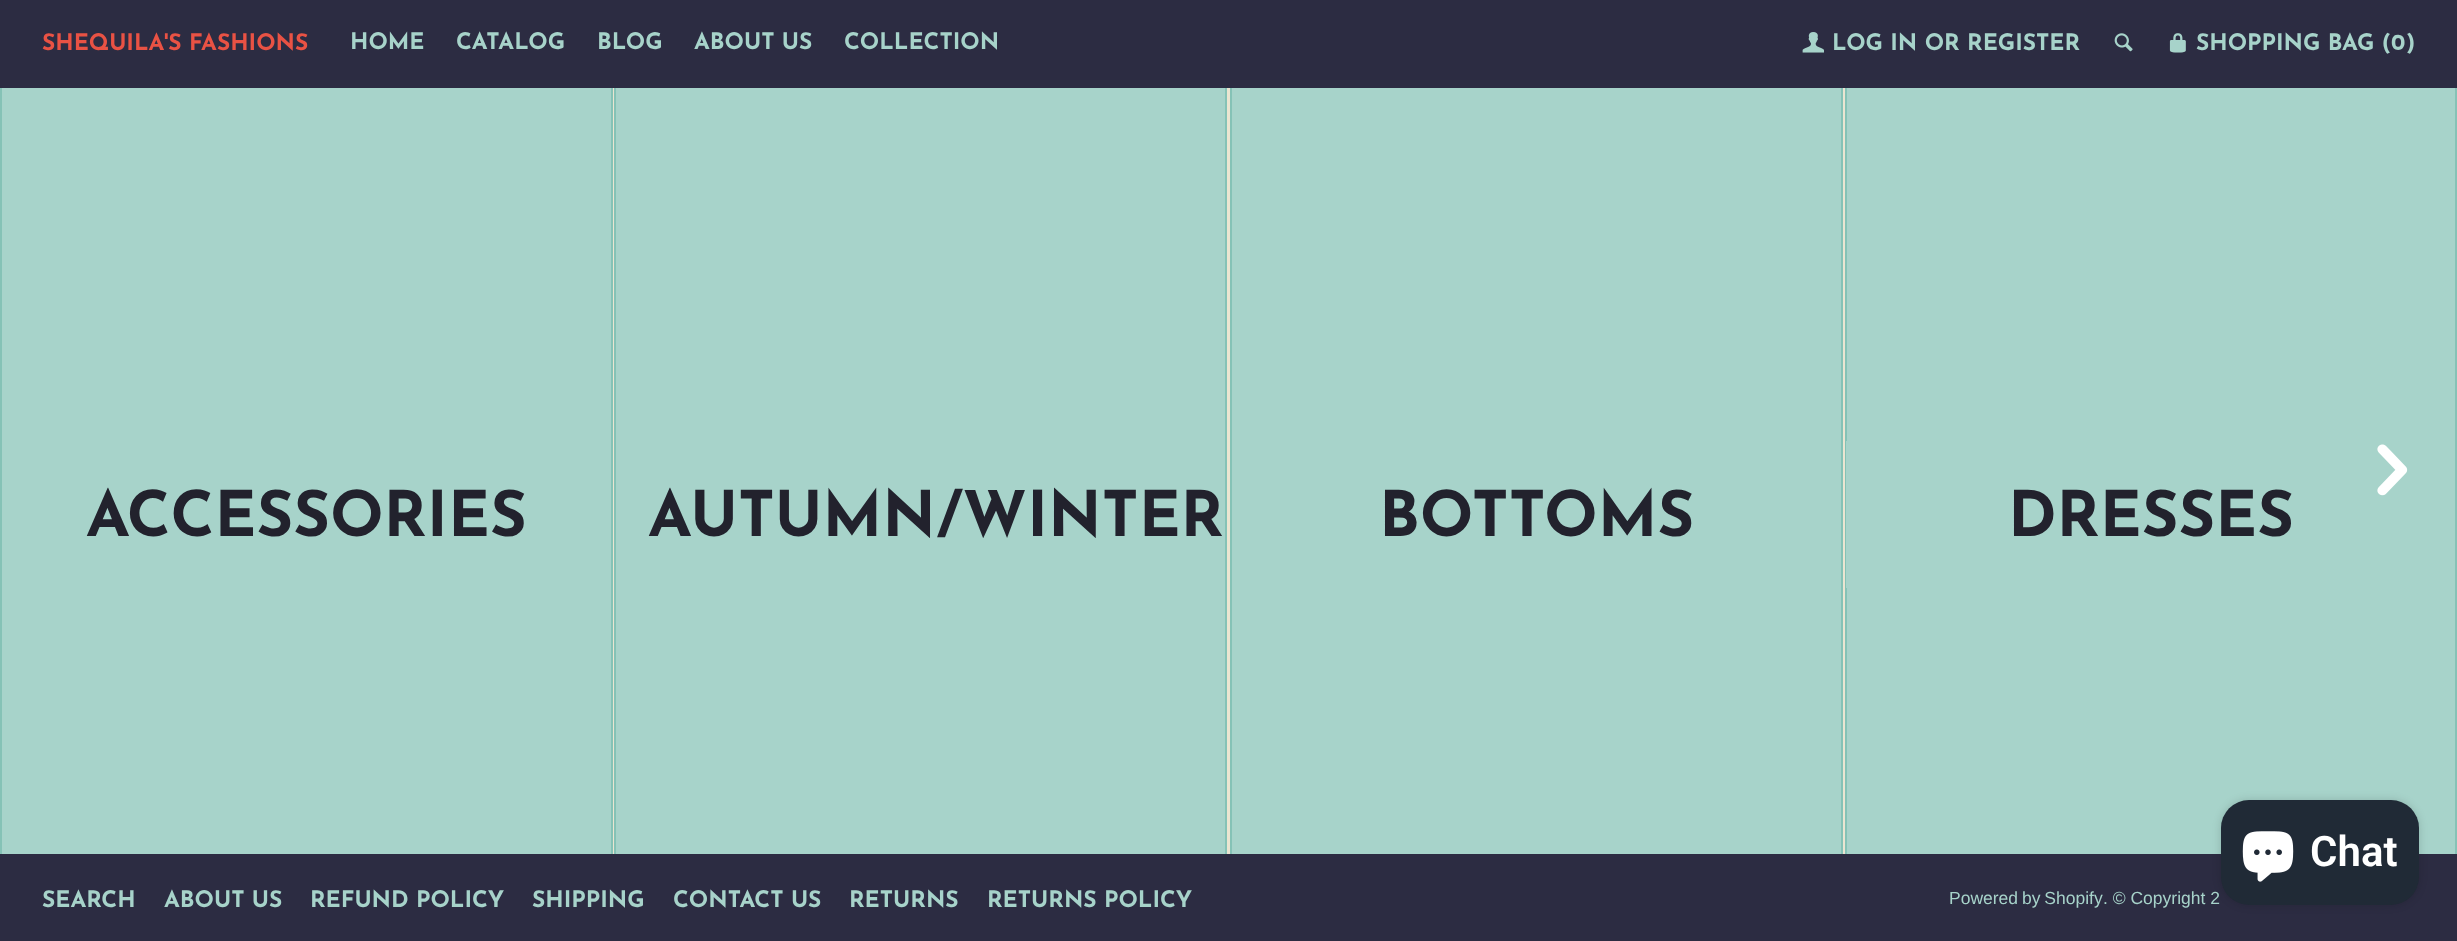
<svg xmlns="http://www.w3.org/2000/svg" xmlns:xlink="http://www.w3.org/1999/xlink" width="2457" height="941" viewBox="0 0 2457 941">
<style>
.cls-1{font:bold 22.75px Josefin Sans;fill:#e95244}
.cls-2{font:bold 22.75px Josefin Sans;fill:#a7d3ca}
.cls-3{font:bold 63px Josefin Sans;fill:#22222d}
.cls-4{font:600 42px Roboto;fill:#ffffff}
.cls-5{font:17.5px Liberation Sans;fill:#a7d3ca}
</style>
<rect width="100%" height="100%" fill="#ebe5d1"/>
<rect fill="#2c2c42" x="0" y="0" width="2457" height="88"/>
<image xlink:href="image0.png" x="1802" y="32" width="22" height="21"/>
<image xlink:href="image1.png" x="2114" y="33" width="19" height="19"/>
<image xlink:href="image2.png" x="2169" y="33" width="17" height="20"/>
<rect fill="#a7d3ca" x="1847" y="88" width="608" height="766"/>
<image xlink:href="image3.png" x="2377" y="444" width="31" height="52"/>
<rect fill="#a7d3ca" x="2" y="88" width="609" height="766"/>
<rect fill="#85c2b6" x="611" y="88" width="2" height="766"/>
<rect fill="#85c2b6" x="0" y="88" width="2" height="766"/>
<rect fill="#a7d3ca" x="616" y="88" width="609" height="766"/>
<rect fill="#85c2b6" x="1225" y="88" width="2" height="766"/>
<rect fill="#85c2b6" x="614" y="88" width="2" height="766"/>
<rect fill="#a7d3ca" x="1232" y="88" width="609" height="766"/>
<rect fill="#85c2b6" x="1841" y="88" width="2" height="766"/>
<rect fill="#85c2b6" x="1230" y="88" width="2" height="766"/>
<rect fill="#85c2b6" x="2455" y="88" width="2" height="766"/>
<rect fill="#85c2b6" x="1845" y="88" width="2" height="766"/>
<rect fill="#a7d3ca" x="1846" y="441" width="1" height="147"/>
<rect fill="#2c2c42" x="0" y="854" width="2457" height="87"/>
<rect fill="#000000" fill-opacity="0.15" filter="blur(4.5px)" x="2221" y="800" width="198" height="105" rx="28"/>
<rect fill="#202a36" x="2221" y="800" width="198" height="105" rx="28"/>
<image xlink:href="image4.png" x="2242" y="831" width="52" height="51"/>
<text class="cls-1" x="42" y="50">SHEQUILA'S FASHIONS</text>
<text class="cls-2" x="350" y="49">HOME</text>
<text class="cls-2" x="456" y="49">CATALOG</text>
<text class="cls-2" x="597" y="49">BLOG</text>
<text class="cls-2" x="694" y="49">ABOUT US</text>
<text class="cls-2" x="844" y="49">COLLECTION</text>
<text class="cls-2" x="1832" y="50">LOG IN OR REGISTER</text>
<text class="cls-2" x="2196" y="50">SHOPPING BAG (0</text>
<text class="cls-2" x="2406" y="50">)</text>
<text class="cls-3" x="86" y="536">ACCESSORIES</text>
<text class="cls-3" x="648" y="536">AUTUMN/WINTER</text>
<text class="cls-3" x="1379" y="536">BOTTOMS</text>
<text class="cls-3" x="2008" y="536">DRESSES</text>
<text class="cls-4" x="2310" y="866">Chat</text>
<text class="cls-2" x="42" y="907">SEARCH</text>
<text class="cls-2" x="164" y="907">ABOUT US</text>
<text class="cls-2" x="310" y="907">REFUND POLICY</text>
<text class="cls-2" x="532" y="907">SHIPPING</text>
<text class="cls-2" x="673" y="907">CONTACT US</text>
<text class="cls-2" x="849" y="907">RETURNS</text>
<text class="cls-2" x="987" y="907">RETURNS POLICY</text>
<text class="cls-5" x="1949" y="904" word-spacing="-1">Powered by Shopify</text>
<text class="cls-5" x="2103" y="904">. © Copyright 2</text>
</svg>
